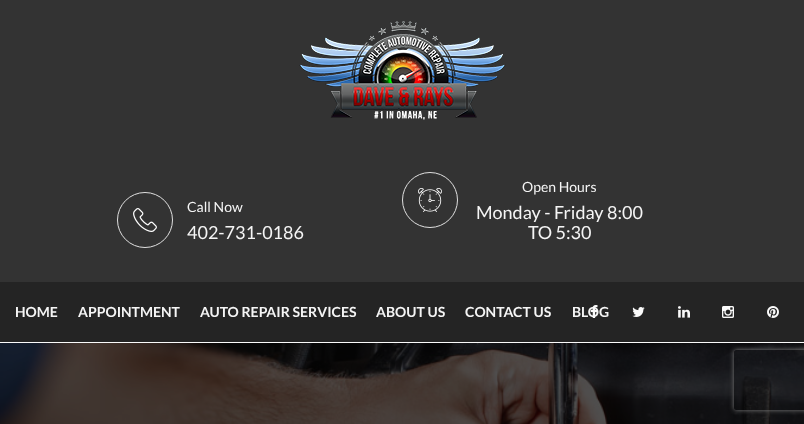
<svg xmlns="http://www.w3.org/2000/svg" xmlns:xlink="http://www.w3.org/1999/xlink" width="804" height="424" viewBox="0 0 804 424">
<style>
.cls-1{font:14px Lato;fill:#f5f5f5}
.cls-2{font:18px Lato;fill:#f5f5f5}
.cls-3{font:bold 14px Lato;fill:#f5f5f5}
</style>
<defs>
<clipPath id="clip1"><path d="M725 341H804V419H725ZM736 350H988C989 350 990 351 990 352V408C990 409 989 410 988 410H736C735 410 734 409 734 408V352C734 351 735 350 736 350Z" clip-rule="evenodd"/></clipPath>
</defs>
<rect width="100%" height="100%" fill="#ffffff"/>
<rect fill="#333333" x="0" y="0" width="804" height="282"/>
<image xlink:href="image0.png" x="299" y="21" width="207" height="99"/>
<circle fill="none" stroke="#e0e0e0" cx="145" cy="220" r="27.5"/>
<image xlink:href="image1.png" x="133" y="208" width="24" height="24"/>
<circle fill="none" stroke="#e0e0e0" cx="430" cy="200" r="27.5"/>
<image xlink:href="image2.png" x="418" y="188" width="24" height="24"/>
<image xlink:href="image8.png" x="0" y="343" width="804" height="81"/>
<g clip-path="url(#clip1)">
<rect fill="#808080" filter="blur(2.5px)" x="734" y="350" width="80" height="60" rx="2"/>
</g>
<rect fill="#242424" x="0" y="282" width="804" height="60"/>
<rect fill="#fafafa" x="0" y="342" width="804" height="1"/>
<image xlink:href="image4.png" x="632" y="307" width="13" height="10"/>
<image xlink:href="image5.png" x="678" y="306" width="12" height="12"/>
<image xlink:href="image6.png" x="722" y="306" width="12" height="12"/>
<image xlink:href="image7.png" x="767" y="306" width="12" height="12"/>
<text class="cls-1" x="187" y="212">Call Now</text>
<text class="cls-2" x="187" y="239">402-731-0186</text>
<text class="cls-1" x="522" y="192">Open Hours</text>
<text class="cls-2" x="476" y="219">Monday - Friday 8:00</text>
<text class="cls-2" x="528" y="239">TO 5:30</text>
<text class="cls-3" x="15" y="317">HOME</text>
<text class="cls-3" x="78" y="317">APPOINTMENT</text>
<text class="cls-3" x="200" y="317">AUTO REPAIR SERVICES</text>
<text class="cls-3" x="376" y="317">ABOUT US</text>
<text class="cls-3" x="465" y="317">CONTACT US</text>
<text class="cls-3" x="572" y="317">BLOG</text>
<image xlink:href="image3.png" x="590" y="305" width="8" height="13"/>
</svg>
